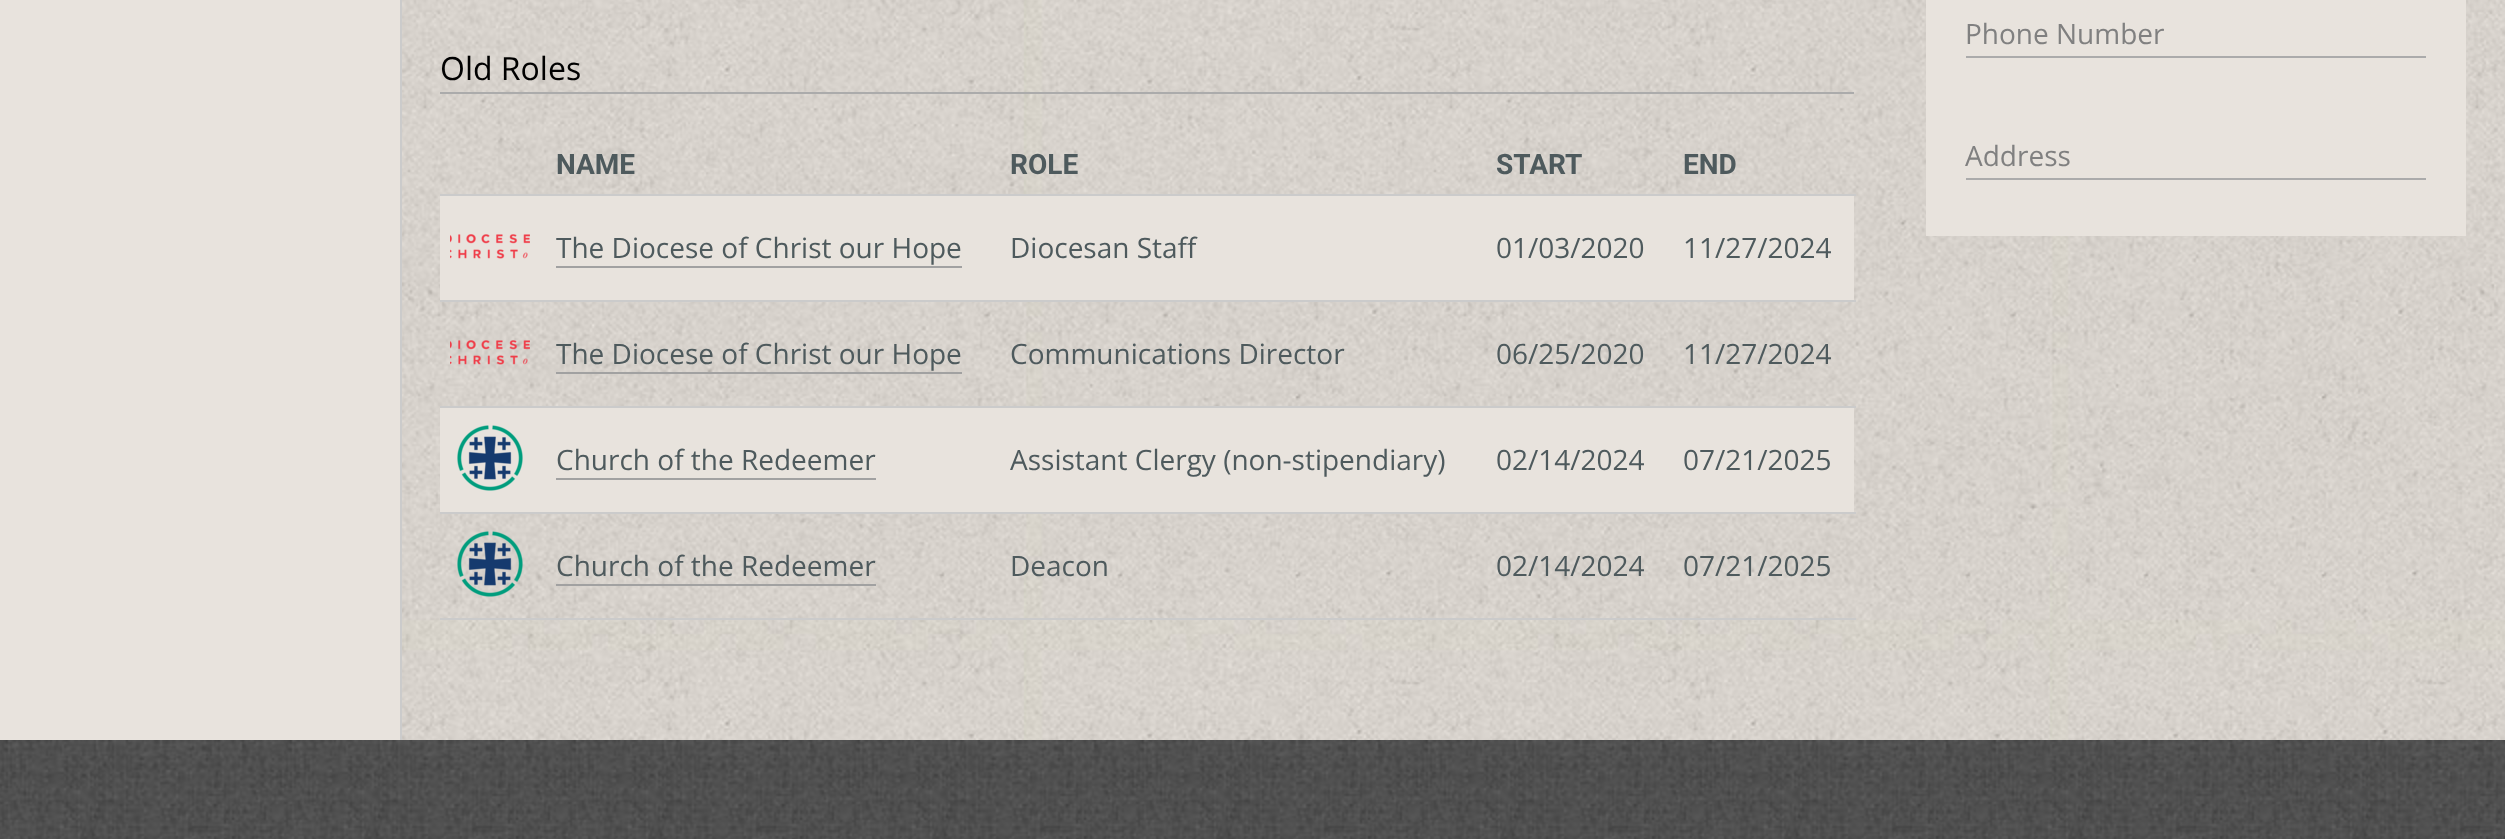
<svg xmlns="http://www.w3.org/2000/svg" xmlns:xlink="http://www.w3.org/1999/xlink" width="2505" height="839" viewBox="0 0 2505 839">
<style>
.cls-1{font:32px Open Sans;fill:#000000}
.cls-2{font:bold 28px Roboto;fill:#4e5a5d}
.cls-3{font:28px Open Sans;fill:#4e5a5d}
.cls-4{font:28px Open Sans;fill:#808080}
</style>
<rect width="100%" height="100%" fill="#ffffff"/>
<image xlink:href="image0.png" x="402" y="0" width="2103" height="740"/>
<rect fill="#e8e3dd" x="0" y="0" width="400" height="740"/>
<rect fill="#cbcbcb" x="400" y="0" width="2" height="740"/>
<rect fill="#ababab" x="440" y="92" width="1414" height="2"/>
<rect fill="#cbcbcb" x="440" y="194" width="1416" height="2"/>
<rect fill="#e8e3dd" x="440" y="196" width="1414" height="104"/>
<rect fill="#cbcbcb" x="440" y="300" width="1416" height="2"/>
<image xlink:href="image1.png" x="450" y="234" width="80" height="25"/>
<rect fill="#a1a1a1" x="556" y="266" width="406" height="2"/>
<rect fill="#cbcbcb" x="440" y="406" width="1416" height="2"/>
<image xlink:href="image2.png" x="450" y="340" width="80" height="25"/>
<rect fill="#a1a1a1" x="556" y="372" width="406" height="2"/>
<rect fill="#e8e3dd" x="440" y="408" width="1414" height="104"/>
<rect fill="#cbcbcb" x="440" y="512" width="1416" height="2"/>
<image xlink:href="image3.png" x="457" y="425" width="66" height="66"/>
<rect fill="#a1a1a1" x="556" y="478" width="320" height="2"/>
<rect fill="#cbcbcb" x="440" y="618" width="1416" height="2"/>
<image xlink:href="image4.png" x="457" y="531" width="66" height="66"/>
<rect fill="#a1a1a1" x="556" y="584" width="320" height="2"/>
<rect fill="#e8e3dd" x="1926" y="0" width="540" height="236"/>
<rect fill="#ababab" x="1966" y="56" width="460" height="2"/>
<rect fill="#ababab" x="1966" y="178" width="460" height="2"/>
<image xlink:href="image5.png" x="0" y="740" width="2505" height="99"/>
<text class="cls-1" x="440" y="80">Old Roles</text>
<text class="cls-2" x="556" y="174">NAME</text>
<text class="cls-2" x="1010" y="174">ROLE</text>
<text class="cls-2" x="1496" y="174">START</text>
<text class="cls-2" x="1683" y="174">END</text>
<text class="cls-3" x="556" y="258">The Diocese of Christ our Hope</text>
<text class="cls-3" x="1010" y="258">Diocesan Staff</text>
<text class="cls-3" x="1496" y="258">01/03/2020</text>
<text class="cls-3" x="1683" y="258">11/27/2024</text>
<text class="cls-3" x="556" y="364">The Diocese of Christ our Hope</text>
<text class="cls-3" x="1010" y="364">Communications Director</text>
<text class="cls-3" x="1496" y="364">06/25/2020</text>
<text class="cls-3" x="1683" y="364">11/27/2024</text>
<text class="cls-3" x="556" y="470">Church of the Redeemer</text>
<text class="cls-3" x="1010" y="470">Assistant Clergy (non-stipendiary)</text>
<text class="cls-3" x="1496" y="470">02/14/2024</text>
<text class="cls-3" x="1683" y="470">07/21/2025</text>
<text class="cls-3" x="556" y="576">Church of the Redeemer</text>
<text class="cls-3" x="1010" y="576">Deacon</text>
<text class="cls-3" x="1496" y="576">02/14/2024</text>
<text class="cls-3" x="1683" y="576">07/21/2025</text>
<text class="cls-4" x="1965" y="44">Phone Number</text>
<text class="cls-4" x="1965" y="166">Address</text>
</svg>
